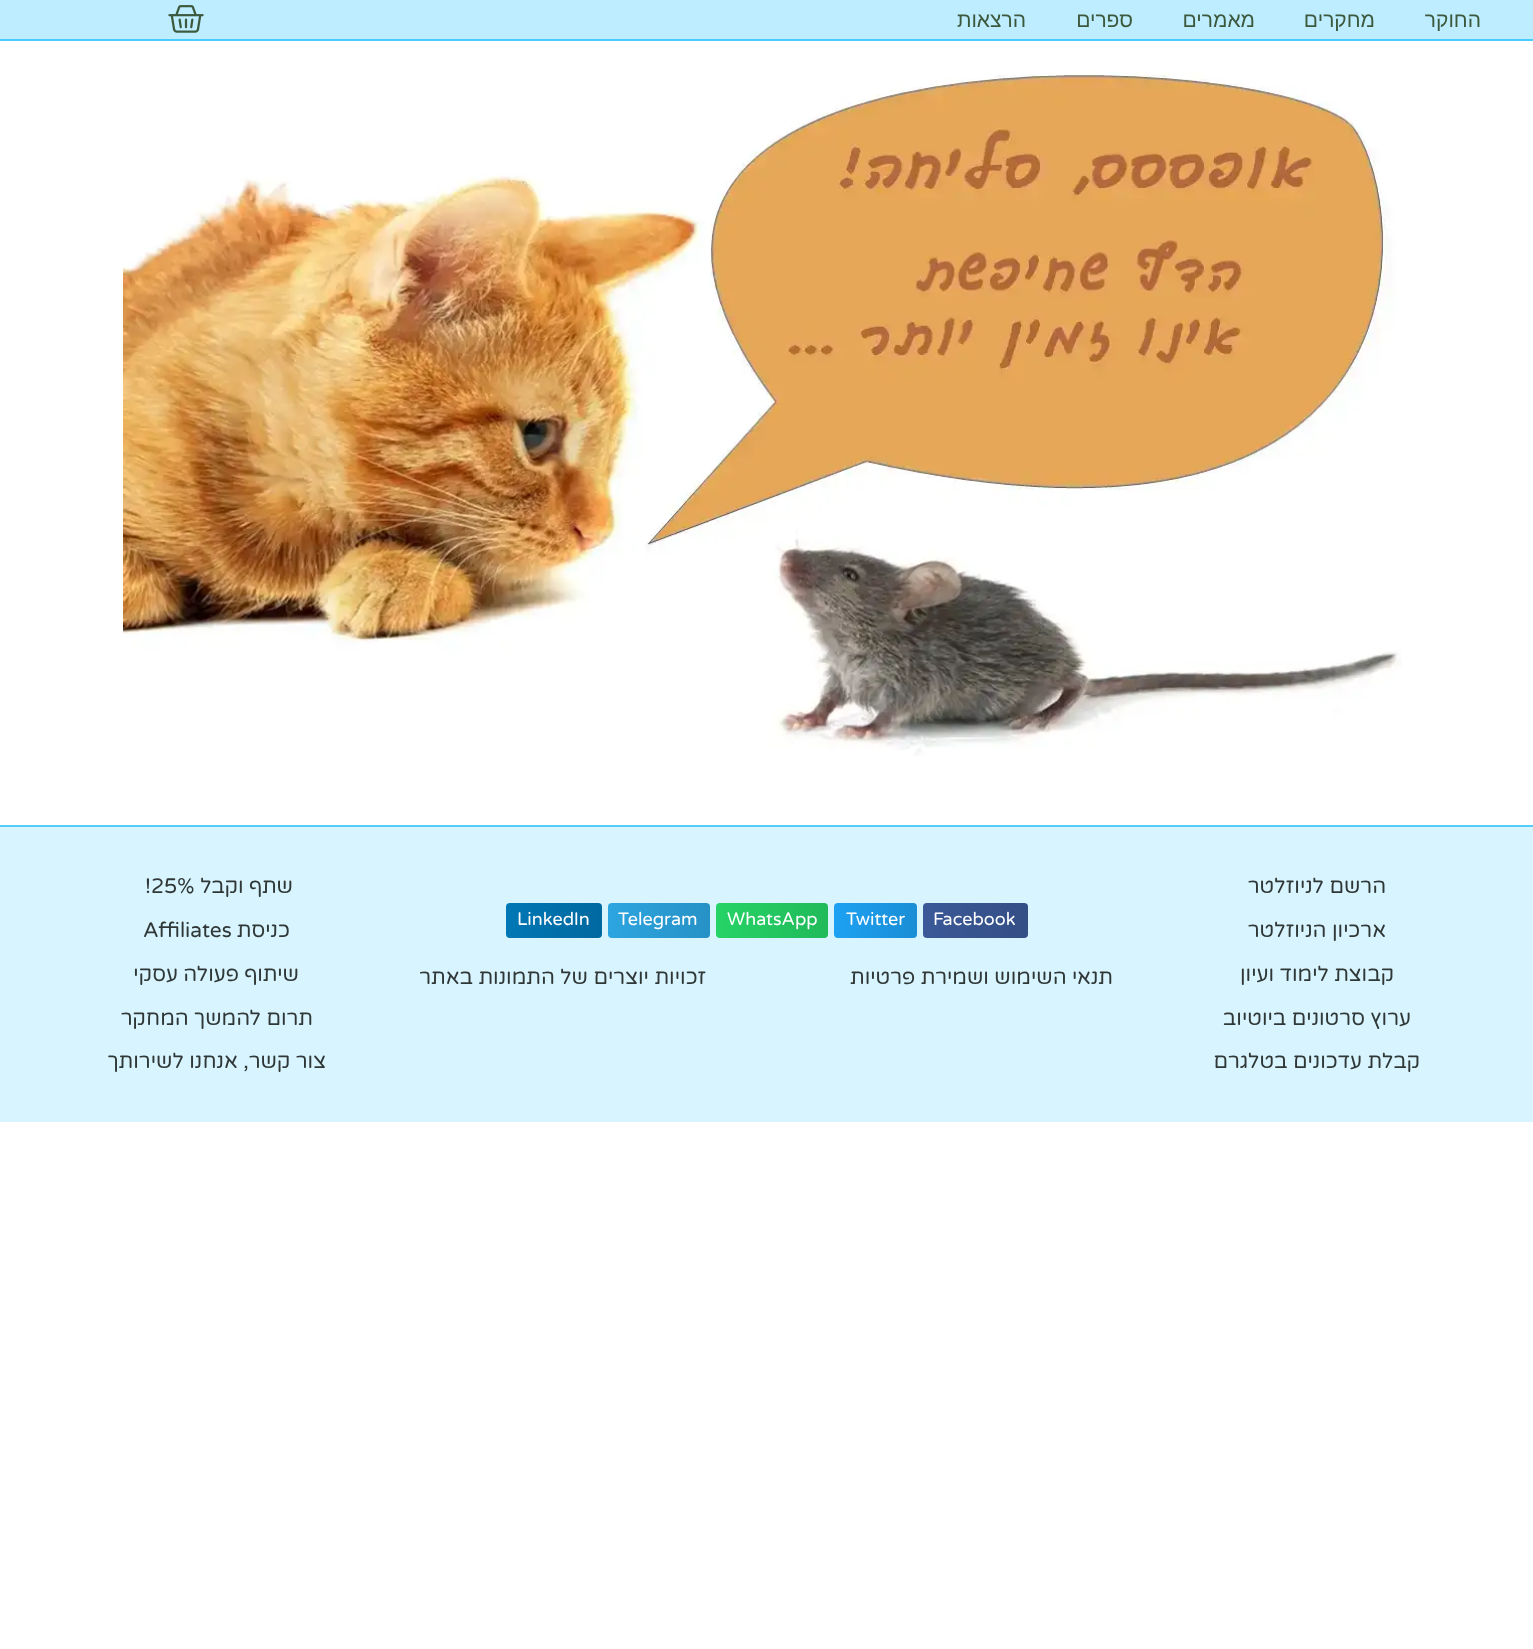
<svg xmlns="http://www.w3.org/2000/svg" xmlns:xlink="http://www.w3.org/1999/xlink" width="1533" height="1649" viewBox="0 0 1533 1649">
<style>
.cls-1{font:21px Liberation Sans;direction:rtl;fill:#3d593d}
.cls-2{font:21px Varela Round;direction:rtl;fill:#303837}
.cls-3{font:18px Varela Round;fill:#ffffff}
.cls-4{font:21px Varela Round;fill:#303837}
</style>
<defs>
<linearGradient id="g1" gradientUnits="userSpaceOnUse" x1="1028" y1="920" x2="923" y2="920"><stop offset="0" stop-color="#000000" stop-opacity="0.12"/><stop offset="1" stop-color="#000000" stop-opacity="0"/></linearGradient>
<linearGradient id="g2" gradientUnits="userSpaceOnUse" x1="917" y1="920" x2="834" y2="920"><stop offset="0" stop-color="#000000" stop-opacity="0.12"/><stop offset="1" stop-color="#000000" stop-opacity="0"/></linearGradient>
<linearGradient id="g3" gradientUnits="userSpaceOnUse" x1="828" y1="920" x2="716" y2="920"><stop offset="0" stop-color="#000000" stop-opacity="0.12"/><stop offset="1" stop-color="#000000" stop-opacity="0"/></linearGradient>
<linearGradient id="g4" gradientUnits="userSpaceOnUse" x1="710" y1="920" x2="608" y2="920"><stop offset="0" stop-color="#000000" stop-opacity="0.12"/><stop offset="1" stop-color="#000000" stop-opacity="0"/></linearGradient>
<linearGradient id="g5" gradientUnits="userSpaceOnUse" x1="602" y1="920" x2="506" y2="920"><stop offset="0" stop-color="#000000" stop-opacity="0.12"/><stop offset="1" stop-color="#000000" stop-opacity="0"/></linearGradient>
</defs>
<rect width="100%" height="100%" fill="#ffffff"/>
<rect fill="#bdedff" x="0" y="0" width="1533" height="39"/>
<rect fill="#48cdff" x="0" y="39" width="1533" height="2"/>
<image xlink:href="image0.png" x="168" y="5" width="36" height="28"/>
<image xlink:href="image1.png" x="123" y="71" width="1279" height="685"/>
<rect fill="#d8f4ff" x="0" y="827" width="1533" height="295"/>
<rect fill="#55cdfa" x="0" y="825" width="1533" height="2"/>
<rect fill="#3b5998" x="923" y="903" width="105" height="35" rx="4"/>
<rect fill="url(#g1)" x="923" y="903" width="105" height="35" rx="4"/>
<rect fill="#1da1f2" x="834" y="903" width="83" height="35" rx="4"/>
<rect fill="url(#g2)" x="834" y="903" width="83" height="35" rx="4"/>
<rect fill="#25d366" x="716" y="903" width="112" height="35" rx="4"/>
<rect fill="url(#g3)" x="716" y="903" width="112" height="35" rx="4"/>
<rect fill="#2ca5e0" x="608" y="903" width="102" height="35" rx="4"/>
<rect fill="url(#g4)" x="608" y="903" width="102" height="35" rx="4"/>
<rect fill="#0077b5" x="506" y="903" width="96" height="35" rx="4"/>
<rect fill="url(#g5)" x="506" y="903" width="96" height="35" rx="4"/>
<text class="cls-1" x="1481" y="27">החוקר</text>
<text class="cls-1" x="1375" y="27">מחקרים</text>
<text class="cls-1" x="1255" y="27">מאמרים</text>
<text class="cls-1" x="1133" y="27">ספרים</text>
<text class="cls-1" x="1026" y="27">הרצאות</text>
<text class="cls-2" x="1386" y="893">הרשם לניוזלטר</text>
<text class="cls-2" x="1386" y="937">ארכיון הניוזלטר</text>
<text class="cls-2" x="1394" y="981">קבוצת לימוד ועיון</text>
<text class="cls-2" x="1411" y="1025">ערוץ סרטונים ביוטיוב</text>
<text class="cls-2" x="1420" y="1068">קבלת עדכונים בטלגרם</text>
<text class="cls-3" x="933" y="925">Facebook</text>
<text class="cls-3" x="846" y="925">Twitter</text>
<text class="cls-3" x="727" y="925">WhatsApp</text>
<text class="cls-3" x="618" y="925">Telegram</text>
<text class="cls-3" x="517" y="925">LinkedIn</text>
<text class="cls-2" x="1113" y="984">תנאי השימוש ושמירת פרטיות</text>
<text class="cls-2" x="706" y="984">זכויות יוצרים של התמונות באתר</text>
<text class="cls-2" x="293" y="893">שתף וקבל</text>
<text class="cls-4" x="145" y="893">!25%</text>
<text class="cls-2" x="290" y="937">כניסת</text>
<text class="cls-4" x="143" y="937">Affiliates</text>
<text class="cls-2" x="299" y="981">שיתוף פעולה עסקי</text>
<text class="cls-2" x="313" y="1025">תרום להמשך המחקר</text>
<text class="cls-2" x="326" y="1068">צור קשר, אנחנו לשירותך</text>
</svg>
